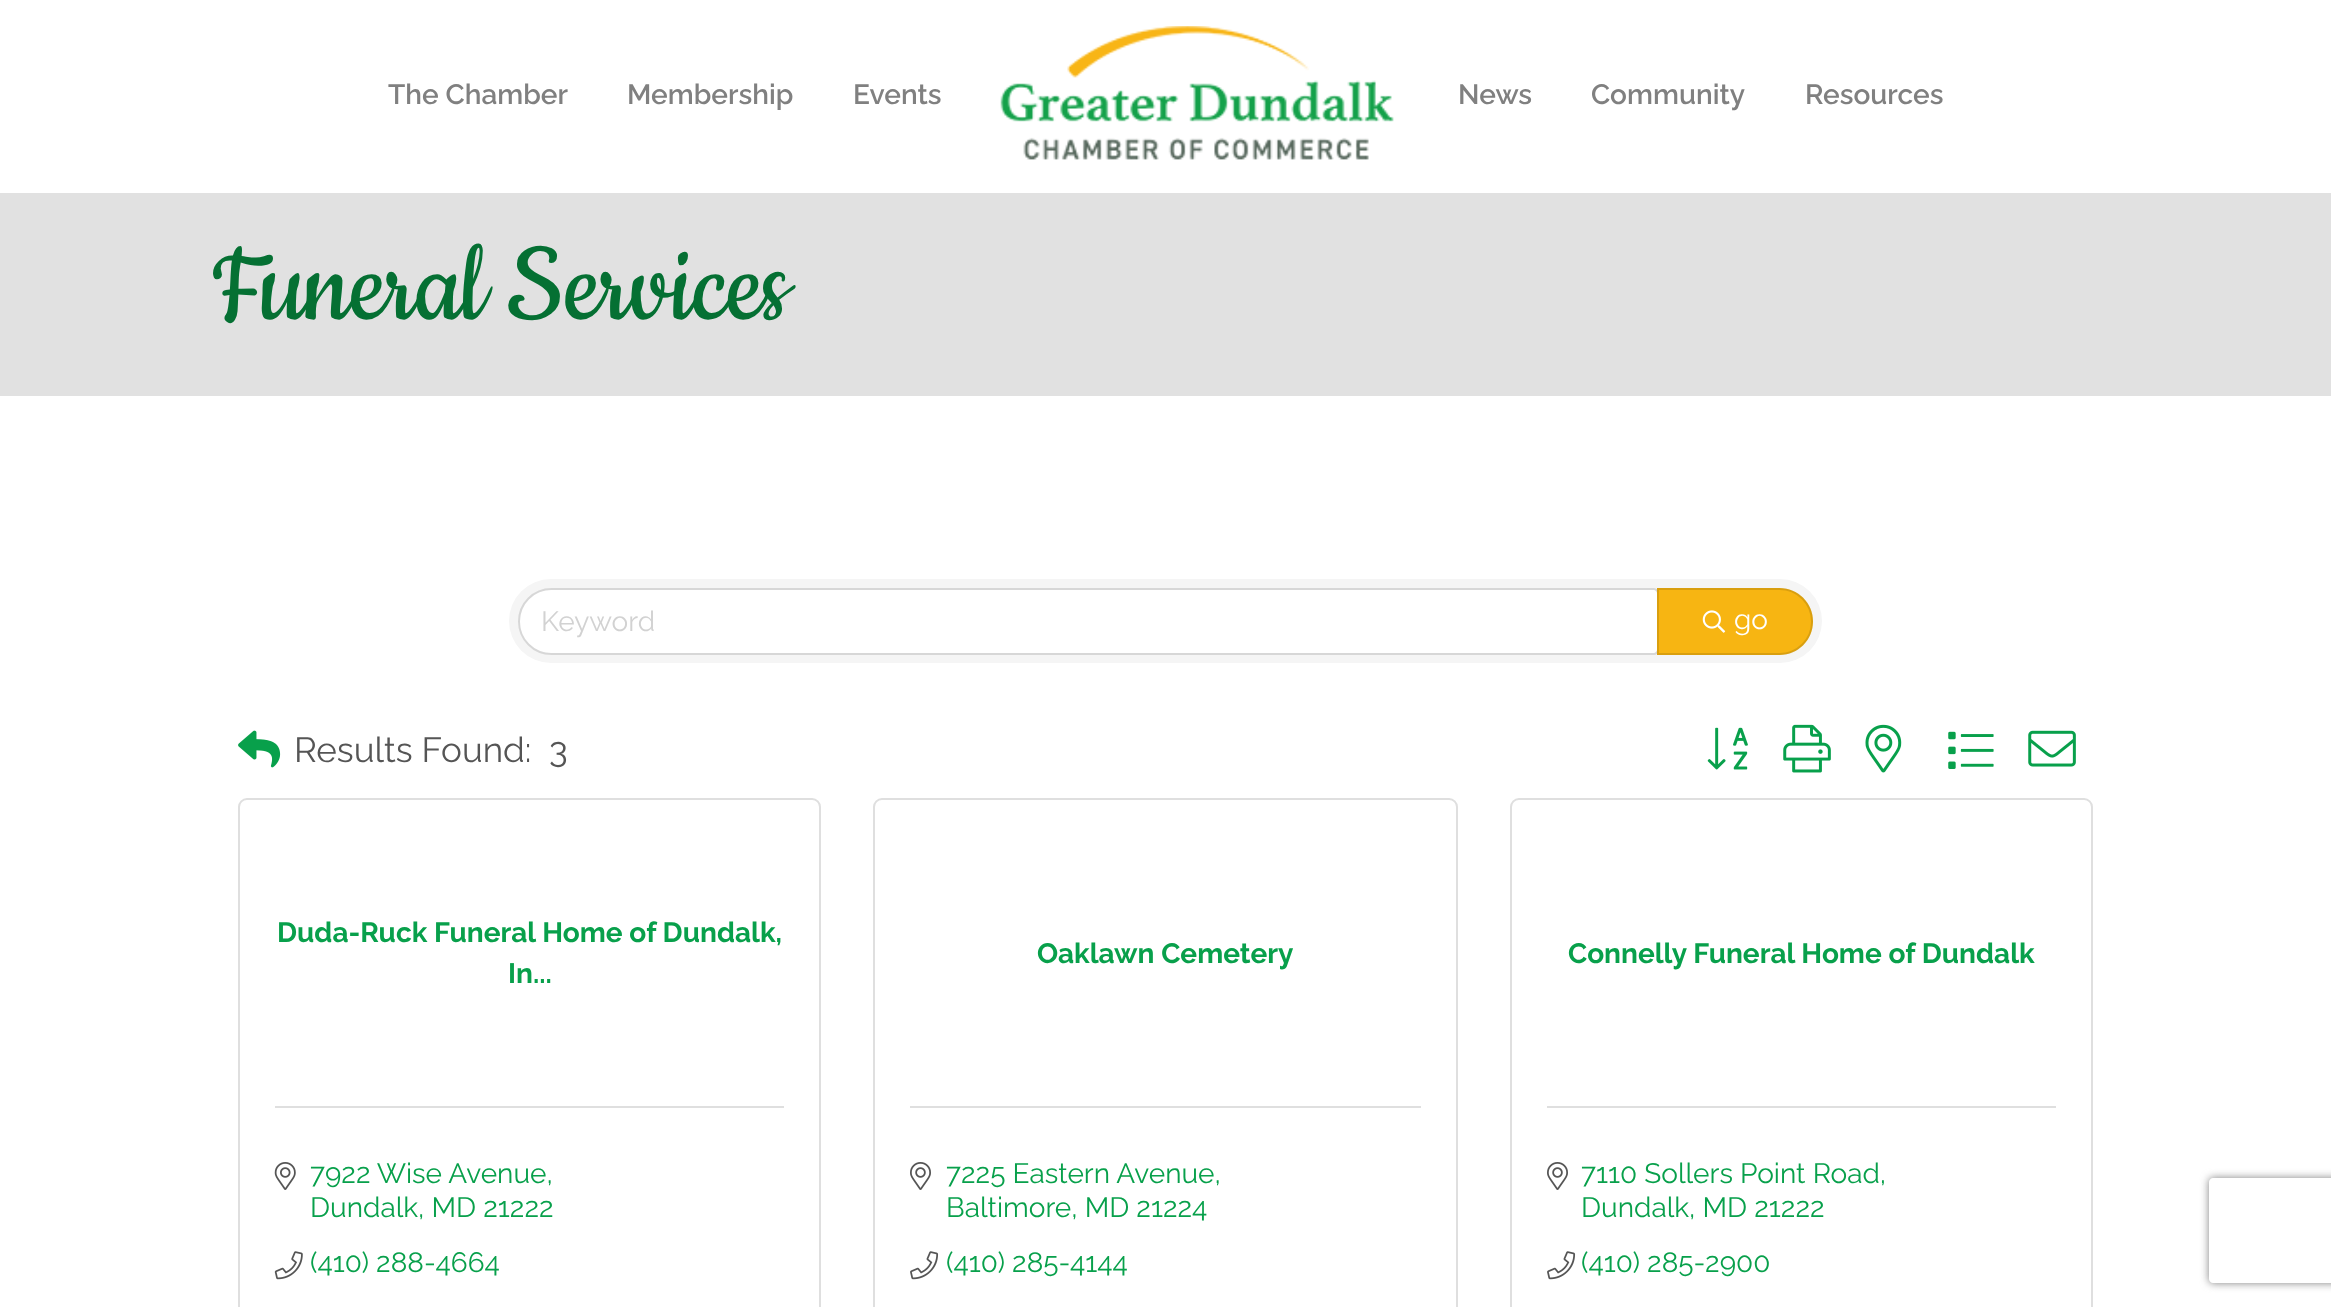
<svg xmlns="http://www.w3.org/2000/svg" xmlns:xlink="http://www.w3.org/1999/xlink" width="2331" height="1307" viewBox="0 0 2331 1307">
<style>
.cls-1{font:600 28px Raleway;fill:#808080}
.cls-2{font:126px Cookie;letter-spacing:-1.75px;fill:#057033}
.cls-3{font:28px Raleway;fill:#d2d2d2}
.cls-4{font:28px Raleway;fill:#ffffff}
.cls-5{font:35px Raleway;fill:#555555}
.cls-6{font:bold 28px Raleway;fill:#08a04b}
.cls-7{font:28px Raleway;fill:#08a04b}
</style>
<defs>
<clipPath id="clip1"><path d="M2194 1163H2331V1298H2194ZM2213 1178H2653C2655 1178 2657 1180 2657 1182V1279C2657 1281 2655 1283 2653 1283H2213C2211 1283 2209 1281 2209 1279V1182C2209 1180 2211 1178 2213 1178Z" clip-rule="evenodd"/></clipPath>
</defs>
<rect width="100%" height="100%" fill="#ffffff"/>
<image xlink:href="image0.png" x="1000" y="26" width="394" height="134"/>
<rect fill="#e1e1e1" x="0" y="193" width="2331" height="203"/>
<rect fill="#f5f5f5" x="509" y="579" width="1313" height="84" rx="42"/>
<path fill="#ffffff" d="M551.5 590H1653C1655 590 1657 592 1657 594V649C1657 651 1655 653 1653 653H551.5C534 653 520 639 520 621.5C520 604 534 590 551.5 590Z"/>
<path fill="none" stroke="#000000" stroke-opacity="0.12" stroke-width="2" d="M551.5 589H1654C1656 589 1658 591 1658 593V650C1658 652 1656 654 1654 654H551.5C533.5 654 519 639.5 519 621.5C519 603.5 533.5 589 551.5 589Z"/>
<path fill="#f7b512" d="M1657 588H1779.5C1798 588 1813 603 1813 621.5C1813 640 1798 655 1779.5 655H1657Z"/>
<path fill="none" stroke="#000000" stroke-opacity="0.12" stroke-width="2" d="M1658 589H1779.5C1797.5 589 1812 603.5 1812 621.5C1812 639.5 1797.5 654 1779.5 654H1658Z"/>
<image xlink:href="image1.png" x="1702" y="610" width="24" height="23"/>
<image xlink:href="image2.png" x="238" y="730" width="43" height="38"/>
<image xlink:href="image3.png" x="1707" y="727" width="41" height="43"/>
<image xlink:href="image4.png" x="1783" y="724" width="48" height="49"/>
<image xlink:href="image5.png" x="1865" y="724" width="37" height="49"/>
<image xlink:href="image6.png" x="1948" y="731" width="46" height="38"/>
<image xlink:href="image7.png" x="2028" y="730" width="48" height="37"/>
<rect fill="none" stroke="#dfdfdf" stroke-width="2" x="239" y="799" width="581" height="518" rx="8"/>
<rect fill="#dfdfdf" x="275" y="1106" width="509" height="2"/>
<image xlink:href="image8.png" x="274" y="1162" width="22" height="28"/>
<image xlink:href="image9.png" x="274" y="1251" width="29" height="29"/>
<rect fill="none" stroke="#dfdfdf" stroke-width="2" x="874" y="799" width="583" height="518" rx="8"/>
<rect fill="#dfdfdf" x="910" y="1106" width="511" height="2"/>
<image xlink:href="image10.png" x="910" y="1162" width="21" height="28"/>
<image xlink:href="image11.png" x="910" y="1251" width="29" height="29"/>
<rect fill="none" stroke="#dfdfdf" stroke-width="2" x="1511" y="799" width="581" height="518" rx="8"/>
<rect fill="#dfdfdf" x="1547" y="1106" width="509" height="2"/>
<image xlink:href="image10.png" x="1547" y="1162" width="21" height="28"/>
<image xlink:href="image11.png" x="1547" y="1251" width="29" height="29"/>
<g clip-path="url(#clip1)">
<rect fill="#808080" filter="blur(4.5px)" x="2209" y="1178" width="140" height="105" rx="4"/>
</g>
<text class="cls-1" x="388" y="104">The Chamber</text>
<text class="cls-1" x="627" y="104">Membership</text>
<text class="cls-1" x="853" y="104">Events</text>
<text class="cls-1" x="1458" y="104">News</text>
<text class="cls-1" x="1591" y="104">Community</text>
<text class="cls-1" x="1805" y="104">Resources</text>
<text class="cls-2" x="212" y="319">Funeral Services</text>
<text class="cls-3" x="541" y="631">Keyword</text>
<text class="cls-4" x="1734" y="629">go</text>
<text class="cls-5" x="294" y="762">Results Found:</text>
<text class="cls-5" x="549" y="762">3</text>
<text class="cls-6" x="277" y="942">Duda-Ruck Funeral Home of Dundalk,</text>
<text class="cls-6" x="508" y="983">In...</text>
<text class="cls-7"><tspan x="310" y="1183">7922 Wise Avenue,</tspan><tspan x="310" y="1217">Dundalk, MD 21222</tspan><tspan x="310" y="1272">(410) 288-4664</tspan></text>
<text class="cls-6" x="1037" y="963">Oaklawn Cemetery</text>
<text class="cls-7"><tspan x="946" y="1183">7225 Eastern Avenue,</tspan><tspan x="946" y="1217">Baltimore, MD 21224</tspan><tspan x="946" y="1272">(410) 285-4144</tspan></text>
<text class="cls-6" x="1568" y="963">Connelly Funeral Home of Dundalk</text>
<text class="cls-7"><tspan x="1581" y="1183">7110 Sollers Point Road,</tspan><tspan x="1581" y="1217">Dundalk, MD 21222</tspan><tspan x="1581" y="1272">(410) 285-2900</tspan></text>
</svg>
